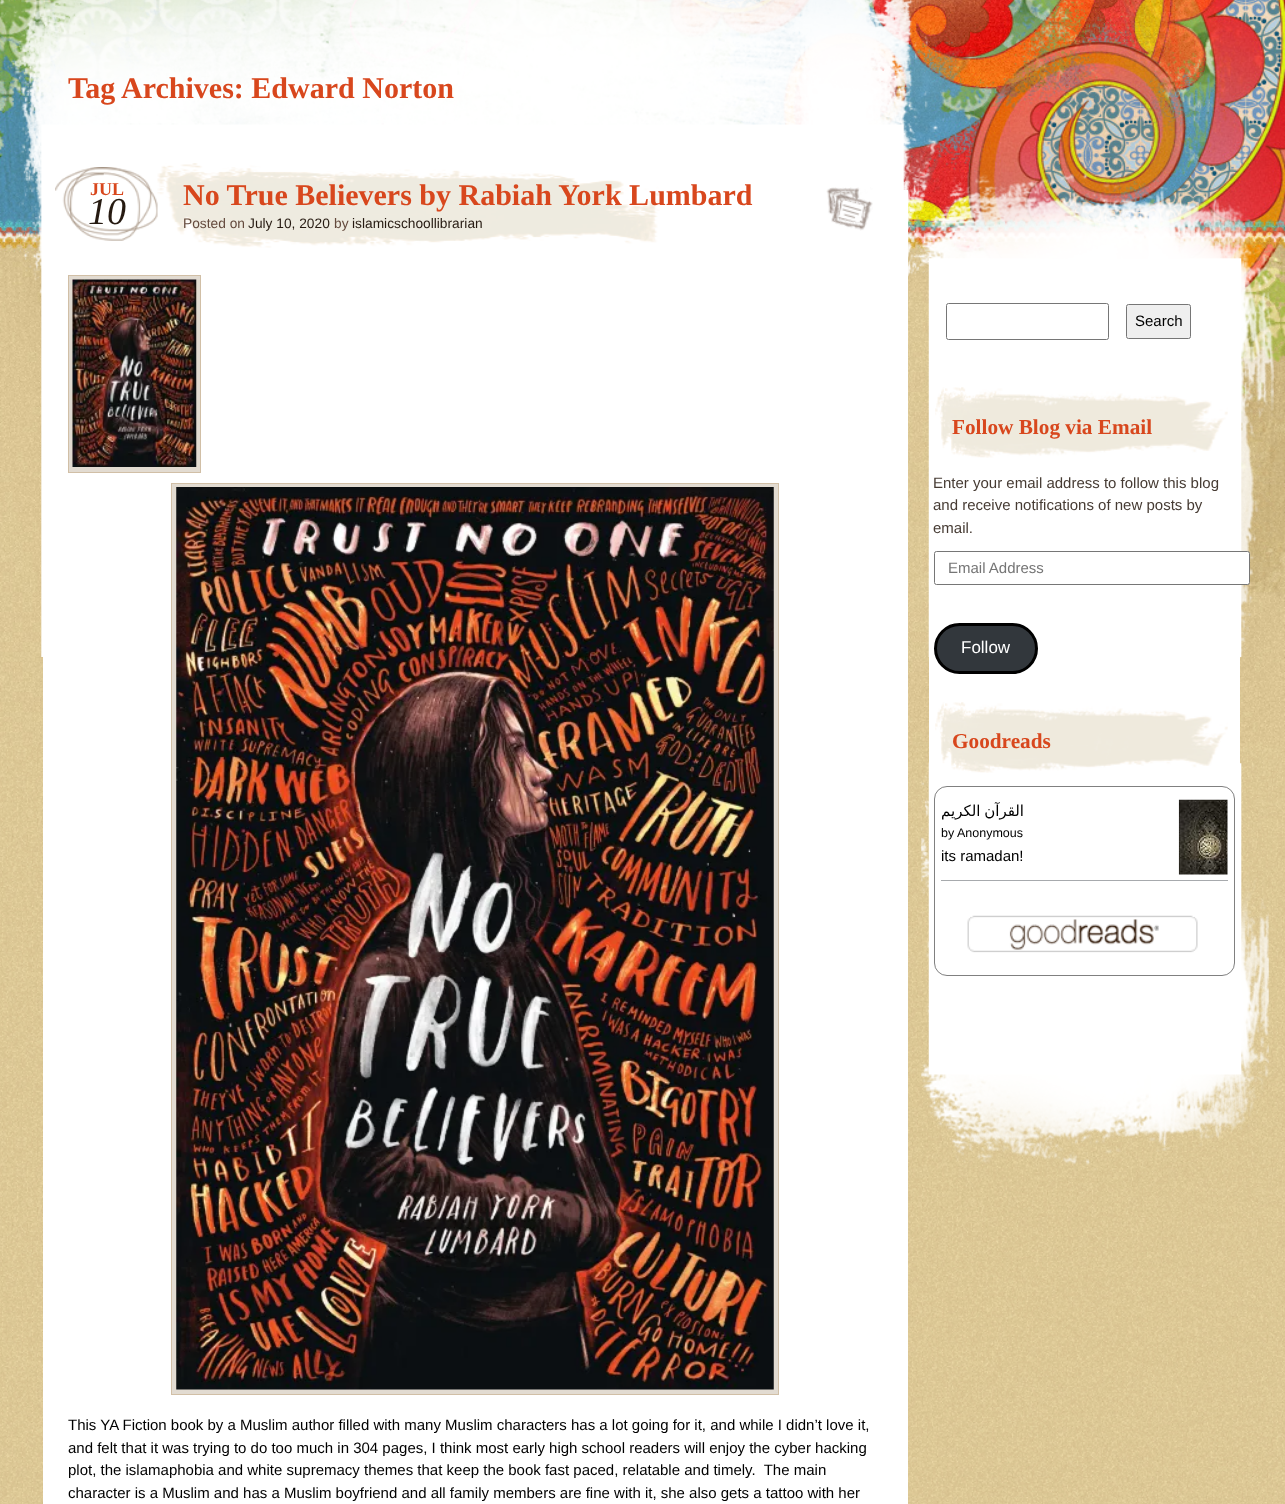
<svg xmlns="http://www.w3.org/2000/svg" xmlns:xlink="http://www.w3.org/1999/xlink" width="1285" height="1504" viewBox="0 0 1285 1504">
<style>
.cls-1{font:bold 30px Liberation Serif;fill:#d8471d}
.cls-2{font:bold 18px Liberation Serif;fill:#d8471d}
.cls-3{font:italic 38px Liberation Serif;fill:#261a11}
.cls-4{font:13.75px Liberation Sans;fill:#644a3d}
.cls-5{font:13.75px Liberation Sans;fill:#261a11}
.cls-6{font:15px Liberation Sans;fill:#000000}
.cls-7{font:bold 21.25px Liberation Serif;fill:#d8471d}
.cls-8{font:15px Liberation Sans;fill:#463b33}
.cls-9{font:15px Liberation Sans;fill:#757575}
.cls-10{font:17px Liberation Sans;fill:#ffffff}
.cls-11{font:15px DejaVu Sans;direction:rtl;fill:#000000}
.cls-12{font:12.5px Liberation Sans;fill:#000000}
</style>
<rect width="100%" height="100%" fill="#ffffff"/>
<image xlink:href="image0.png" x="0" y="745" width="1285" height="759"/>
<image xlink:href="image1.png" x="0" y="0" width="1285" height="746"/>
<image xlink:href="image2.png" x="0" y="0" width="1275" height="657"/>
<rect fill="#ffffff" x="43" y="190" width="865" height="1314"/>
<image xlink:href="image3.png" x="55" y="167" width="103" height="74"/>
<image xlink:href="image4.png" x="157" y="163" width="504" height="85"/>
<image xlink:href="image5.png" x="826" y="187" width="47" height="44"/>
<rect fill="#e2dbd1" stroke="#d1bfa6" x="68.5" y="275.5" width="132" height="197"/>
<image xlink:href="image6.png" x="72" y="279" width="125" height="188"/>
<rect fill="#e2dbd1" stroke="#d1bfa6" x="171.5" y="483.5" width="607" height="911"/>
<image xlink:href="image7.png" x="176" y="487" width="598" height="903"/>
<image xlink:href="image11.png" x="921" y="763" width="348" height="407"/>
<rect fill="#ffffff" x="929" y="657" width="311" height="107"/>
<rect fill="none" stroke="#767676" x="946.5" y="303.5" width="162" height="36" rx="2"/>
<rect fill="#efefef" stroke="#767676" x="1126.5" y="304.5" width="64" height="34" rx="2"/>
<image xlink:href="image8.png" x="935" y="387" width="293" height="71"/>
<rect fill="#ffffff" stroke="#767676" x="934.5" y="551.5" width="315" height="33" rx="2"/>
<rect fill="#32373c" stroke="#000000" stroke-width="3" x="935.5" y="624.5" width="101" height="48" rx="24"/>
<image xlink:href="image8.png" x="935" y="702" width="293" height="71"/>
<rect fill="none" stroke="#808080" x="934.5" y="786.5" width="300" height="189" rx="12.5"/>
<rect fill="#a7aaad" x="941" y="880" width="287" height="1"/>
<image xlink:href="image9.png" x="1178" y="799" width="50" height="76"/>
<image xlink:href="image10.png" x="967" y="915" width="231" height="38"/>
<text class="cls-1" x="68" y="98">Tag Archives: Edward Norton</text>
<text class="cls-2" x="90" y="195">JUL</text>
<text class="cls-3" x="88" y="224">10</text>
<text class="cls-1" x="183" y="205">No True Believers by Rabiah York Lumbard</text>
<text class="cls-4" x="183" y="228">Posted on</text>
<text class="cls-5" x="248" y="228">July 10, 2020</text>
<text class="cls-4" x="334" y="228">by</text>
<text class="cls-5" x="352" y="228">islamicschoollibrarian</text>
<text class="cls-6" xml:space="preserve"><tspan x="68" y="1430">This YA Fiction book by a Muslim author filled with many Muslim characters has a lot going for it, and while I didn’t love it,</tspan><tspan x="68" y="1453">and felt that it was trying to do too much in 304 pages, I think most early high school readers will enjoy the cyber hacking</tspan><tspan x="68" y="1475">plot, the islamaphobia and white supremacy themes that keep the book fast paced, relatable and timely.  The main</tspan><tspan x="68" y="1498">character is a Muslim and has a Muslim boyfriend and all family members are fine with it, she also gets a tattoo with her</tspan></text>
<text class="cls-6" x="1135" y="326">Search</text>
<text class="cls-7" x="952" y="434">Follow Blog via Email</text>
<text class="cls-8"><tspan x="933" y="488">Enter your email address to follow this blog</tspan><tspan x="933" y="510">and receive notifications of new posts by</tspan><tspan x="933" y="533">email.</tspan></text>
<text class="cls-9" x="948" y="573">Email Address</text>
<text class="cls-10" x="961" y="653">Follow</text>
<text class="cls-7" x="952" y="748">Goodreads</text>
<text class="cls-11" x="1024" y="816" word-spacing="-1">القرآن الكريم</text>
<text class="cls-12" x="941" y="837">by</text>
<text class="cls-12" x="957" y="837">Anonymous</text>
<text class="cls-6" x="941" y="861">its ramadan!</text>
</svg>
